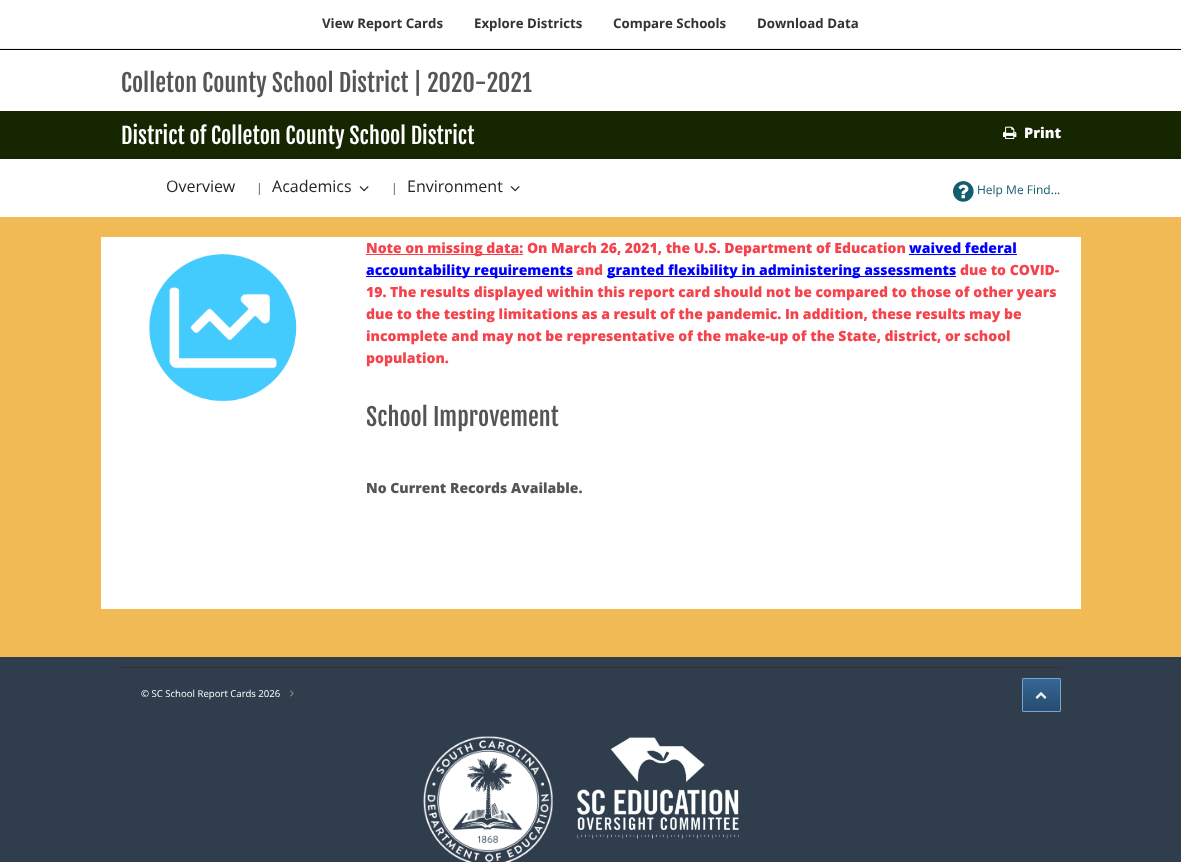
<svg xmlns="http://www.w3.org/2000/svg" xmlns:xlink="http://www.w3.org/1999/xlink" width="1181" height="862" viewBox="0 0 1181 862">
<style>
.cls-1{font:bold 13.25px Open Sans;fill:#333333}
.cls-2{font:24px Fjalla One;fill:#555555}
.cls-3{font:22px Fjalla One;fill:#ffffff}
.cls-4{font:800 14.5px Open Sans;fill:#ffffff}
.cls-5{font:16px Open Sans;fill:#252525}
.cls-6{font:12px Open Sans;fill:#555555}
.cls-7{font:12px Open Sans;fill:#125e6c}
.cls-8{font:800 14px Open Sans;fill:#f5424b}
.cls-9{font:800 14px Open Sans;fill:#0000ff}
.cls-10{font:800 14px Open Sans;fill:#555555}
.cls-11{font:9.6px Open Sans;fill:#ffffff}
</style>
<defs>
<linearGradient id="g1" gradientUnits="userSpaceOnUse" x1="1042" y1="679" x2="1042" y2="711"><stop offset="0" stop-color="#356695"/><stop offset="1" stop-color="#274c6f"/></linearGradient>
</defs>
<rect width="100%" height="100%" fill="#f1ba55"/>
<rect fill="#000000" x="0" y="49" width="1181" height="1"/>
<rect fill="#ffffff" x="0" y="0" width="1181" height="48"/>
<rect fill="#eeeeee" x="0" y="48" width="1181" height="1"/>
<rect fill="#ffffff" x="0" y="50" width="1181" height="61"/>
<rect fill="#162600" x="0" y="111" width="1181" height="48"/>
<image xlink:href="image0.png" x="1003" y="126" width="14" height="13"/>
<rect fill="#ffffff" x="0" y="159" width="1181" height="58"/>
<image xlink:href="image1.png" x="359" y="186" width="10" height="6"/>
<image xlink:href="image1.png" x="510" y="186" width="10" height="6"/>
<image xlink:href="image2.png" x="953" y="181" width="21" height="21"/>
<rect fill="#ffffff" x="101" y="237" width="980" height="372"/>
<image xlink:href="image3.png" x="149" y="254" width="148" height="148"/>
<rect fill="#f5424b" x="366" y="254" width="157" height="1"/>
<rect fill="#0000ff" x="909" y="254" width="108" height="1"/>
<rect fill="#0000ff" x="366" y="276" width="207" height="1"/>
<rect fill="#0000ff" x="607" y="276" width="349" height="1"/>
<rect fill="#2f3d4c" x="0" y="657" width="1181" height="205"/>
<rect fill="#333333" x="121" y="667" width="940" height="1"/>
<image xlink:href="image4.png" x="290" y="690" width="4" height="7"/>
<rect fill="url(#g1)" x="1023" y="679" width="37" height="32"/>
<rect fill="none" stroke="#79a6d0" x="1022.5" y="678.5" width="38" height="33" rx="0.5"/>
<image xlink:href="image5.png" x="1035" y="692" width="12" height="7"/>
<image xlink:href="image6.png" x="423" y="736" width="130" height="126"/>
<image xlink:href="image7.png" x="577" y="737" width="162" height="102"/>
<text class="cls-1" x="322" y="28">View Report Cards</text>
<text class="cls-1" x="474" y="28">Explore Districts</text>
<text class="cls-1" x="613" y="28">Compare Schools</text>
<text class="cls-1" x="757" y="28">Download Data</text>
<text class="cls-2" x="121" y="92">Colleton County School District | 2020-2021</text>
<text class="cls-3" x="121" y="144">District of Colleton County School District</text>
<text class="cls-4" x="1024" y="138">Print</text>
<text class="cls-5" x="166" y="192">Overview</text>
<text class="cls-6" x="256" y="192">|</text>
<text class="cls-5" x="272" y="192">Academics</text>
<text class="cls-6" x="391" y="192">|</text>
<text class="cls-5" x="407" y="192">Environment</text>
<text class="cls-7" x="977" y="194">Help Me Find...</text>
<text class="cls-8" x="366" y="253">Note on missing data: On March 26, 2021, the U.S. Department of Education</text>
<text class="cls-9" x="909" y="253">waived federal</text>
<text class="cls-9" x="366" y="275">accountability requirements</text>
<text class="cls-8" x="576" y="275">and</text>
<text class="cls-9" x="607" y="275">granted flexibility in administering assessments</text>
<text class="cls-8" x="960" y="275">due to COVID-</text>
<text class="cls-8"><tspan x="366" y="297">19. The results displayed within this report card should not be compared to those of other years</tspan><tspan x="366" y="319">due to the testing limitations as a result of the pandemic. In addition, these results may be</tspan><tspan x="366" y="341">incomplete and may not be representative of the make-up of the State, district, or school</tspan><tspan x="366" y="363">population.</tspan></text>
<text class="cls-2" x="366" y="426">School Improvement</text>
<text class="cls-10" x="366" y="493">No Current Records Available.</text>
<text class="cls-11" x="141" y="697">© SC School Report Cards 2026</text>
</svg>
